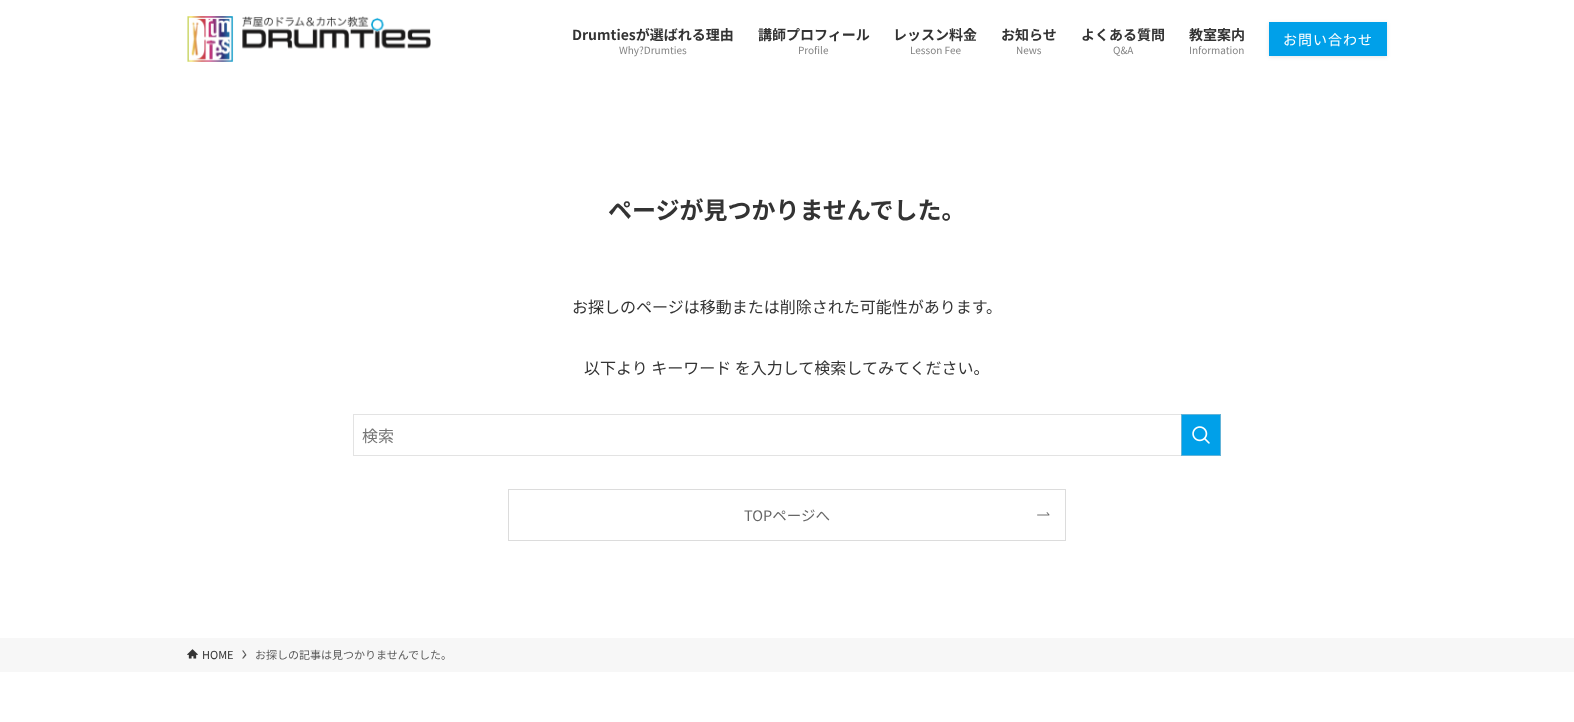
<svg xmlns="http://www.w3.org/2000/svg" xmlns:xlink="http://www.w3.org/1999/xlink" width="1574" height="722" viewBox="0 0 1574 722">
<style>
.cls-1{font:bold 14px Noto Sans JP;fill:#333333}
.cls-2{font:10px Noto Sans JP;fill:#848484}
.cls-3{font:14px Noto Sans JP;letter-spacing:1px;fill:#ffffff}
.cls-4{font:bold 24px Noto Sans JP;fill:#333333}
.cls-5{font:16px Noto Sans JP;fill:#333333}
.cls-6{font:16px Noto Sans JP;fill:#757575}
.cls-7{font:14.5px Noto Sans JP;fill:#666666}
.cls-8{font:11px Noto Sans JP;fill:#333333}
.cls-9{font:11px Noto Sans JP;fill:#5a5a5a}
</style>
<rect width="100%" height="100%" fill="#ffffff"/>
<image xlink:href="image0.png" x="187" y="16" width="244" height="46"/>
<rect fill="#000000" fill-opacity="0.1" filter="blur(2px)" x="1269" y="23" width="118" height="34"/>
<rect fill="#00a0e9" x="1269" y="22" width="118" height="34"/>
<rect fill="none" stroke="#e3e3e3" x="353.5" y="414.5" width="867" height="41"/>
<rect fill="#00a0e9" stroke="#64b4d8" x="1181.5" y="414.5" width="39" height="41"/>
<image xlink:href="image1.png" x="1192" y="426" width="18" height="18"/>
<rect fill="none" stroke="#dcdcdc" x="508.5" y="489.5" width="557" height="51"/>
<image xlink:href="image2.png" x="1037" y="512" width="13" height="4"/>
<rect fill="#f7f7f7" x="0" y="638" width="1574" height="34"/>
<image xlink:href="image3.png" x="187" y="649" width="11" height="10"/>
<path fill="#5a5a5a" d="M243.5 650.5H242L245 654.5L242 658.5H243.5L246.5 655Z"/>
<text class="cls-1" x="572" y="40">Drumtiesが選ばれる理由</text>
<text class="cls-2" x="619" y="54">Why?Drumties</text>
<text class="cls-1" x="758" y="40">講師プロフィール</text>
<text class="cls-2" x="798" y="54">Profile</text>
<text class="cls-1" x="893" y="40">レッスン料金</text>
<text class="cls-2" x="910" y="54">Lesson Fee</text>
<text class="cls-1" x="1001" y="40">お知らせ</text>
<text class="cls-2" x="1016" y="54">News</text>
<text class="cls-1" x="1081" y="40">よくある質問</text>
<text class="cls-2" x="1113" y="54">Q&amp;A</text>
<text class="cls-1" x="1189" y="40">教室案内</text>
<text class="cls-2" x="1189" y="54">Information</text>
<text class="cls-3" x="1283" y="45">お問い合わせ</text>
<text class="cls-4" x="608" y="219">ページが見つかりませんでした。</text>
<text class="cls-5" x="572" y="313">お探しのページは移動または削除された可能性があります。</text>
<text class="cls-5" x="584" y="374">以下より キーワード を入力して検索してみてください。</text>
<text class="cls-6" x="362" y="442">検索</text>
<text class="cls-7" x="744" y="521">TOPページへ</text>
<text class="cls-8" x="202" y="659">HOME</text>
<text class="cls-9" x="255" y="659">お探しの記事は見つかりませんでした。</text>
</svg>
